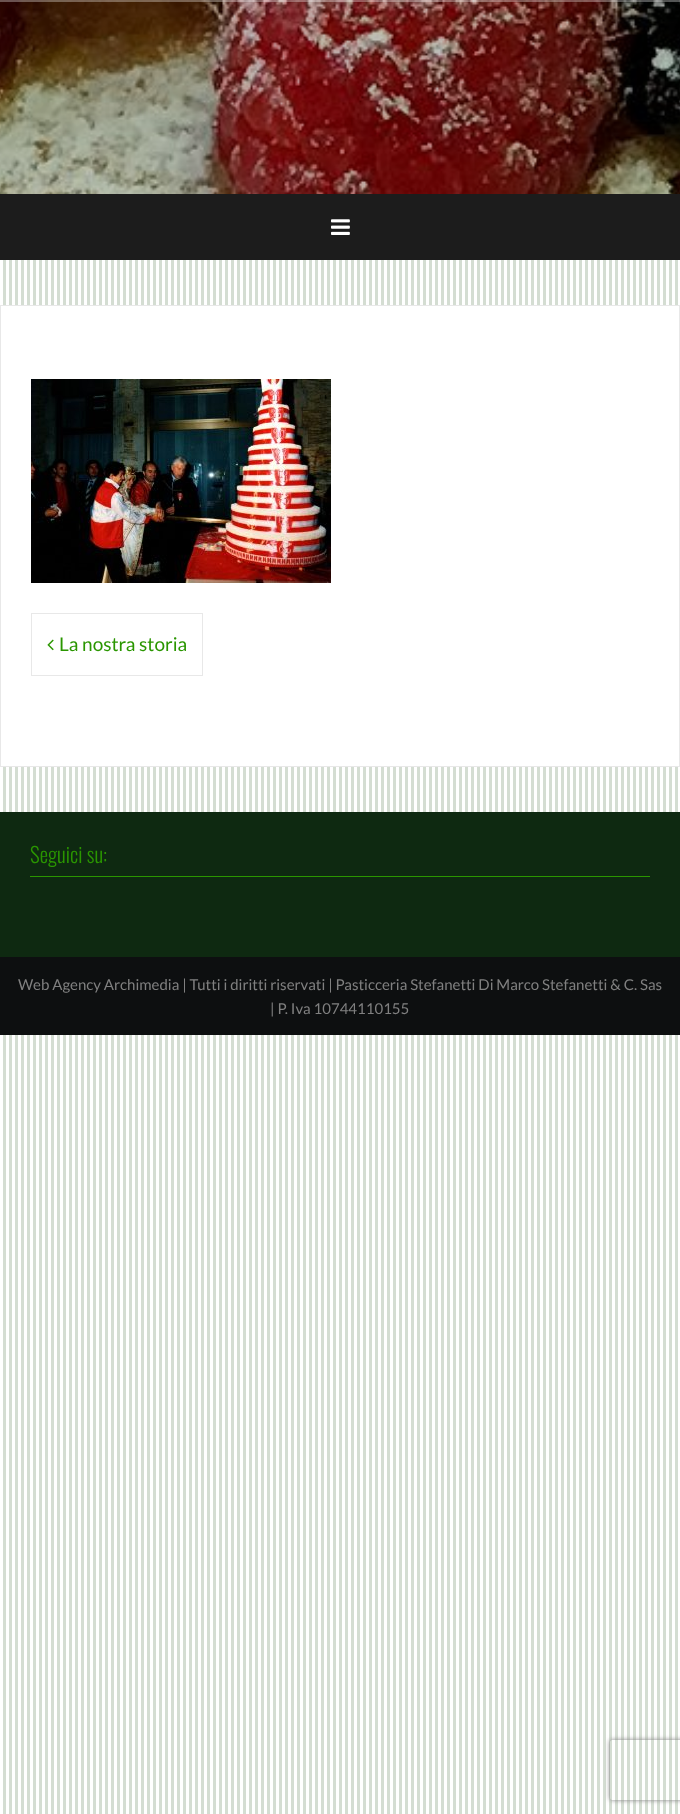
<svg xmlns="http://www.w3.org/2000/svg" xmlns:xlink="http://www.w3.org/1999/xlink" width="680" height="1814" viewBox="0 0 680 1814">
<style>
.cls-1{font:19px Lato;fill:#2a9600}
.cls-2{font:300 21px Oswald;fill:#2a9600}
.cls-3{font:15px Lato;fill:#808080}
</style>
<defs>
<clipPath id="clip1"><path d="M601 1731H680V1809H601ZM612 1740H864C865 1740 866 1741 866 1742V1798C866 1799 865 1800 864 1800H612C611 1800 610 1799 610 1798V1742C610 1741 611 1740 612 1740Z" clip-rule="evenodd"/></clipPath>
</defs>
<rect width="100%" height="100%" fill="#ffffff"/>
<image xlink:href="image0.png" x="0" y="260" width="680" height="1554"/>
<image xlink:href="image1.png" x="0" y="0" width="680" height="194"/>
<rect fill="#ffffff" fill-opacity="0.15" x="0" y="0" width="680" height="2"/>
<rect fill="#ffffff" fill-opacity="0.2" x="0" y="0" width="680" height="1"/>
<rect fill="#ffffff" fill-opacity="0.2" x="0" y="1" width="680" height="1"/>
<rect fill="#1c1c1c" x="0" y="194" width="680" height="66"/>
<image xlink:href="image2.png" x="331" y="219" width="19" height="16"/>
<rect fill="#ffffff" x="3" y="306" width="675" height="460"/>
<rect fill="none" stroke="#e8e8e8" x="0.5" y="305.5" width="679" height="461"/>
<image xlink:href="image3.png" x="31" y="379" width="300" height="204"/>
<rect fill="none" stroke="#e8e8e8" x="31.5" y="613.5" width="171" height="62"/>
<image xlink:href="image4.png" x="47" y="639" width="7" height="12"/>
<rect fill="#0e2911" x="0" y="812" width="680" height="145"/>
<rect fill="#2a9600" x="30" y="876" width="620" height="1"/>
<rect fill="#0d0f10" x="0" y="957" width="680" height="78"/>
<g clip-path="url(#clip1)">
<rect fill="#808080" filter="blur(2.5px)" x="610" y="1740" width="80" height="60" rx="2"/>
</g>
<text class="cls-1" x="59" y="651">La nostra storia</text>
<text class="cls-2" x="30" y="863">Seguici su:</text>
<text class="cls-3" x="18" y="990">Web Agency Archimedia | Tutti i diritti riservati | Pasticceria Stefanetti Di Marco Stefanetti &amp; C. Sas</text>
<text class="cls-3" x="270" y="1014">| P. Iva 10744110155</text>
</svg>
